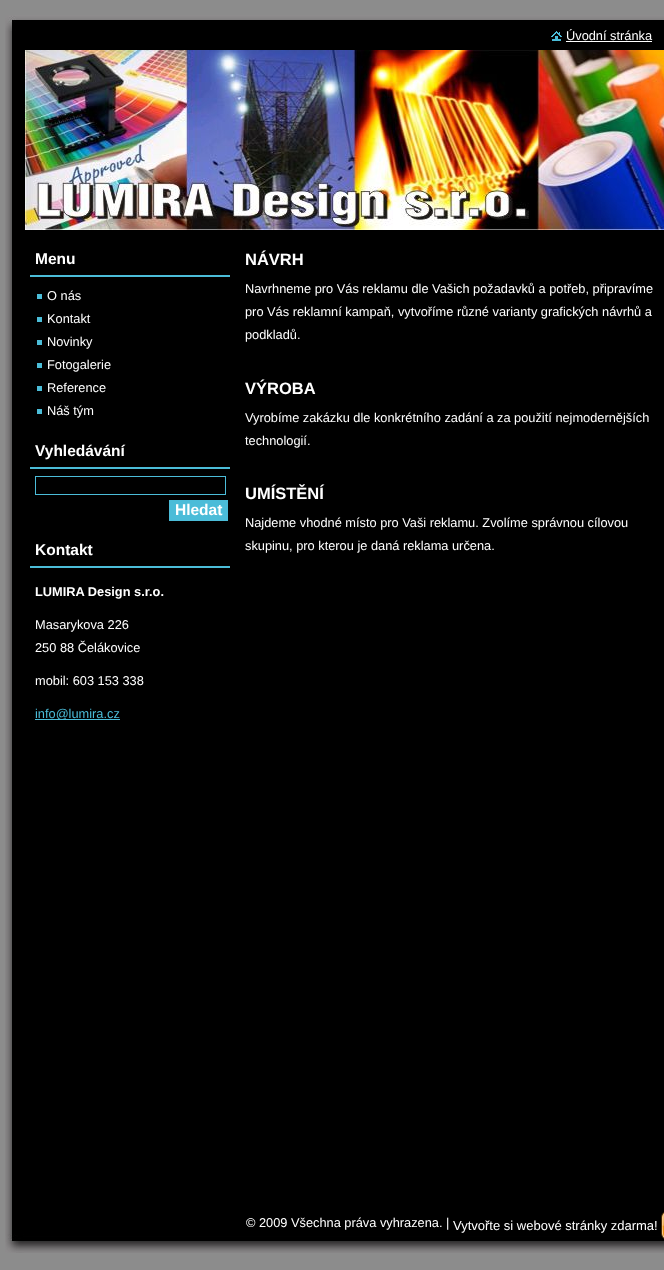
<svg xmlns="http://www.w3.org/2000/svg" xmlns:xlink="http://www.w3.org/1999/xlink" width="664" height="1270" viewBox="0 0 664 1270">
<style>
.cls-1{font:12.8px Liberation Sans;fill:#ffffff}
.cls-2{font:bold 15.5px Liberation Sans;fill:#ffffff}
.cls-3{font:bold 12.8px Liberation Sans;fill:#ffffff}
.cls-4{font:12.8px Liberation Sans;fill:#4bbcd8}
.cls-5{font:bold 16.5px Liberation Sans;fill:#ffffff}
.cls-6{font:13px Liberation Sans;fill:#ffffff}
</style>
<rect width="100%" height="100%" fill="#8c8c8c"/>
<image xlink:href="image0.png" x="5" y="31" width="659" height="1203"/>
<image xlink:href="image1.png" x="5" y="15" width="659" height="16"/>
<image xlink:href="image2.png" x="551" y="31" width="11" height="10"/>
<rect fill="#ffffff" x="566" y="41" width="86" height="1"/>
<image xlink:href="image3.png" x="25" y="50" width="639" height="180"/>
<rect fill="#4bbcd8" x="30" y="275" width="200" height="2"/>
<rect fill="#4bbdd8" x="37" y="294" width="5" height="5"/>
<rect fill="#4bbdd8" x="37" y="317" width="5" height="5"/>
<rect fill="#4bbdd8" x="37" y="340" width="5" height="5"/>
<rect fill="#4bbdd8" x="37" y="363" width="5" height="5"/>
<rect fill="#4bbdd8" x="37" y="386" width="5" height="5"/>
<rect fill="#4bbdd8" x="37" y="409" width="5" height="5"/>
<rect fill="#4bbcd8" x="30" y="467" width="200" height="2"/>
<rect fill="none" stroke="#4bbcd8" x="35.5" y="476.5" width="190" height="18"/>
<rect fill="#4bbcd8" x="169" y="500" width="59" height="21"/>
<rect fill="#4bbcd8" x="30" y="566" width="200" height="2"/>
<rect fill="#4bbcd8" x="35" y="719" width="85" height="1"/>
<image xlink:href="image4.png" x="5" y="1234" width="659" height="19"/>
<image xlink:href="image5.png" x="661" y="1212" width="3" height="27"/>
<text class="cls-1" x="566" y="40">Úvodní stránka</text>
<text class="cls-2" x="35" y="264">Menu</text>
<text class="cls-1"><tspan x="47" y="300">O nás</tspan><tspan x="47" y="323">Kontakt</tspan><tspan x="47" y="346">Novinky</tspan><tspan x="47" y="369">Fotogalerie</tspan><tspan x="47" y="392">Reference</tspan><tspan x="47" y="415">Náš tým</tspan></text>
<text class="cls-2" x="35" y="456">Vyhledávání</text>
<text class="cls-2" x="175" y="515">Hledat</text>
<text class="cls-2" x="35" y="555">Kontakt</text>
<text class="cls-3" x="35" y="596">LUMIRA Design s.r.o.</text>
<text class="cls-1"><tspan x="35" y="629">Masarykova 226</tspan><tspan x="35" y="652">250 88 Čelákovice</tspan></text>
<text class="cls-1" x="35" y="685">mobil: 603 153 338</text>
<text class="cls-4" x="35" y="718">info@lumira.cz</text>
<text class="cls-5" x="245" y="265">NÁVRH</text>
<text class="cls-1"><tspan x="245" y="293">Navrhneme pro Vás reklamu dle Vašich požadavků a potřeb, připravíme</tspan><tspan x="245" y="316">pro Vás reklamní kampaň, vytvoříme různé varianty grafických návrhů a</tspan><tspan x="245" y="339">podkladů.</tspan></text>
<text class="cls-5" x="245" y="394">VÝROBA</text>
<text class="cls-1"><tspan x="245" y="422">Vyrobíme zakázku dle konkrétního zadání a za použití nejmodernějších</tspan><tspan x="245" y="445">technologií.</tspan></text>
<text class="cls-5" x="245" y="499">UMÍSTĚNÍ</text>
<text class="cls-1"><tspan x="245" y="527">Najdeme vhodné místo pro Vaši reklamu. Zvolíme správnou cílovou</tspan><tspan x="245" y="550">skupinu, pro kterou je daná reklama určena.</tspan></text>
<text class="cls-1" x="246" y="1227">© 2009 Všechna práva vyhrazena. |</text>
<text class="cls-6" x="453" y="1230">Vytvořte si webové stránky zdarma!</text>
</svg>
